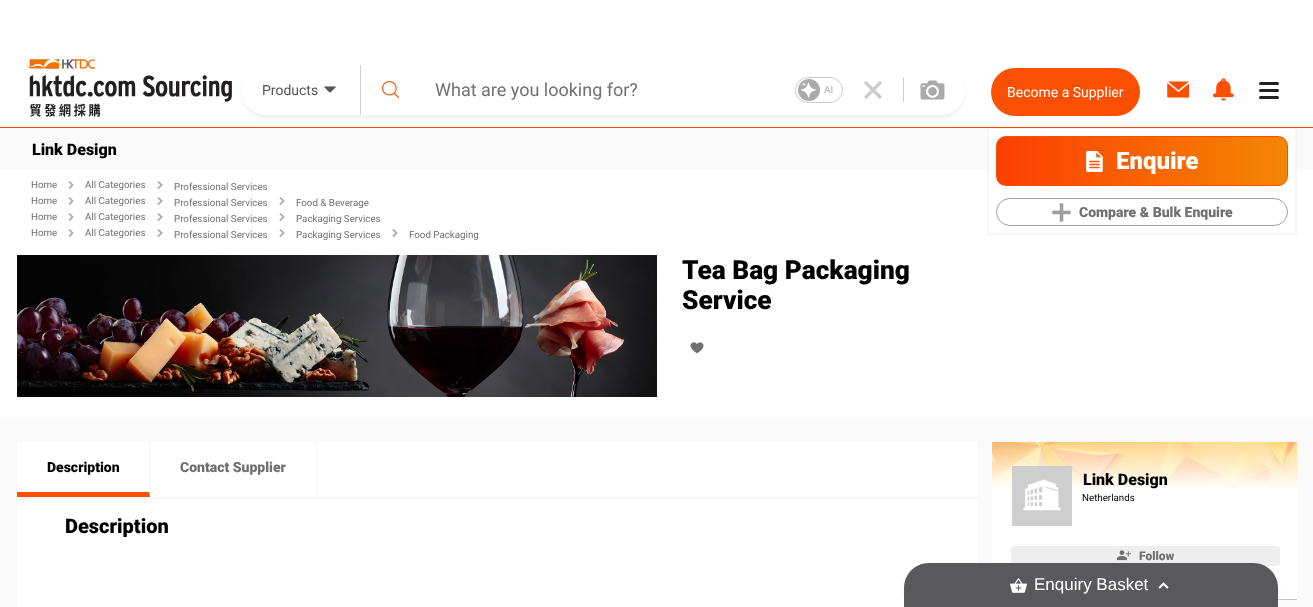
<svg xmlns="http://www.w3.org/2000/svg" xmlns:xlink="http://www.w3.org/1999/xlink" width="1313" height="607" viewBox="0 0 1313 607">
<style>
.cls-1{font:14px Roboto;fill:#555555}
.cls-2{font:18px Roboto;fill:#707070}
.cls-3{font:10px Roboto;fill:#aaaaaa}
.cls-4{font:14px Roboto;fill:#ffffff}
.cls-5{font:900 16px Roboto;fill:#000000}
.cls-6{font:900 24px Roboto;fill:#ffffff}
.cls-7{font:900 14px Roboto;fill:#707070}
.cls-8{font:9.75px Roboto;fill:#707070}
.cls-9{font:900 26.25px Roboto;fill:#000000}
.cls-10{font:900 14px Roboto;fill:#000000}
.cls-11{font:900 20px Roboto;fill:#000000}
.cls-12{font:9.75px Roboto;fill:#000000}
.cls-13{font:900 12px Roboto;fill:#707070}
.cls-14{font:17px Liberation Sans;fill:#ffffff}
</style>
<defs>
<clipPath id="clip1"><path d="M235 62H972V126H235ZM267 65H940C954 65 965 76 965 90C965 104 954 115 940 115H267C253 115 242 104 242 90C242 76 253 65 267 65Z" clip-rule="evenodd"/></clipPath>
<clipPath id="clip2"><rect x="996" y="136" width="292" height="50" rx="10"/></clipPath>
<linearGradient id="g1" gradientUnits="userSpaceOnUse" x1="1287" y1="161" x2="997" y2="161"><stop offset="0" stop-color="#f58603"/><stop offset="1" stop-color="#fb3f04"/></linearGradient>
</defs>
<rect width="100%" height="100%" fill="#ffffff"/>
<rect fill="#fafafa" x="0" y="128" width="1313" height="42"/>
<rect fill="#ffffff" x="989" y="129" width="306" height="41"/>
<rect fill="none" stroke="#f5f5f5" stroke-width="2" x="988" y="128" width="308" height="106"/>
<rect fill="#fb5004" x="0" y="127" width="1313" height="1"/>
<image xlink:href="image0.png" x="27" y="59" width="205" height="58"/>
<g clip-path="url(#clip1)">
<rect fill="#7f7f7f" fill-opacity="0.1" filter="blur(2px)" x="242" y="69" width="723" height="50" rx="25"/>
</g>
<rect fill="#cfcfcf" x="360" y="65" width="1" height="50"/>
<image xlink:href="image1.png" x="324" y="86" width="12" height="7"/>
<image xlink:href="image2.png" x="382" y="81" width="17" height="17"/>
<rect fill="none" stroke="#cccccc" x="795.5" y="77.5" width="47" height="25" rx="12.5"/>
<image xlink:href="image3.png" x="798" y="79" width="22" height="22"/>
<image xlink:href="image4.png" x="864" y="81" width="18" height="18"/>
<rect fill="#cccccc" x="903" y="78" width="1" height="24"/>
<image xlink:href="image5.png" x="920" y="80" width="25" height="20"/>
<rect fill="#fb5004" x="991" y="68" width="149" height="48" rx="24"/>
<image xlink:href="image6.png" x="1167" y="81" width="22" height="17"/>
<image xlink:href="image7.png" x="1213" y="78" width="21" height="23"/>
<rect fill="#222222" x="1259" y="82" width="20" height="3" rx="1.5"/>
<rect fill="#222222" x="1259" y="89" width="20" height="3" rx="1.5"/>
<rect fill="#222222" x="1259" y="96" width="20" height="3" rx="1.5"/>
<g clip-path="url(#clip2)">
<rect fill="url(#g1)" x="997" y="137" width="290" height="48"/>
</g>
<rect fill="none" stroke="#fb5004" x="996.5" y="136.5" width="291" height="49" rx="9.5"/>
<image xlink:href="image8.png" x="1086" y="151" width="17" height="21"/>
<rect fill="none" stroke="#9e9e9e" x="996.5" y="198.5" width="291" height="27" rx="13.5"/>
<image xlink:href="image9.png" x="1052" y="203" width="19" height="19"/>
<image xlink:href="image10.png" x="68" y="181" width="6" height="8"/>
<image xlink:href="image10.png" x="157" y="181" width="6" height="8"/>
<image xlink:href="image10.png" x="68" y="197" width="6" height="8"/>
<image xlink:href="image10.png" x="157" y="197" width="6" height="8"/>
<image xlink:href="image10.png" x="279" y="197" width="6" height="8"/>
<image xlink:href="image10.png" x="68" y="213" width="6" height="8"/>
<image xlink:href="image10.png" x="157" y="213" width="6" height="8"/>
<image xlink:href="image10.png" x="279" y="213" width="6" height="8"/>
<image xlink:href="image10.png" x="68" y="229" width="6" height="8"/>
<image xlink:href="image10.png" x="157" y="229" width="6" height="8"/>
<image xlink:href="image10.png" x="279" y="229" width="6" height="8"/>
<image xlink:href="image10.png" x="392" y="229" width="6" height="8"/>
<image xlink:href="image11.png" x="17" y="255" width="640" height="142"/>
<image xlink:href="image12.png" x="690" y="342" width="14" height="12"/>
<rect fill="#fafafa" x="0" y="418" width="1313" height="189"/>
<rect fill="#ffffff" x="17" y="442" width="960" height="165"/>
<rect fill="#f5f5f5" x="17" y="497" width="960" height="2"/>
<path fill="#f5f5f5" d="M150 442V497L149 492V442Z"/>
<path fill="#fb5004" d="M150 497H17V492H149Z"/>
<rect fill="#f5f5f5" x="316" y="442" width="1" height="55"/>
<rect fill="#070001" fill-opacity="0.22" filter="blur(0.5px)" x="992" y="443" width="305" height="157" rx="1"/>
<rect fill="#ffffff" x="992" y="442" width="305" height="157" rx="1"/>
<image xlink:href="image13.png" x="992" y="442" width="305" height="46"/>
<image xlink:href="image14.png" x="1012" y="466" width="60" height="60"/>
<rect fill="#eeeeee" x="1011" y="546" width="269" height="20" rx="3"/>
<image xlink:href="image15.png" x="1117" y="550" width="14" height="11"/>
<rect fill="#000000" fill-opacity="0.06" filter="blur(2.5px)" x="904" y="566" width="374" height="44" rx="25"/>
<path fill="#59595b" d="M929 563H1253C1267 563 1278 574 1278 588V607H904V588C904 574 915 563 929 563Z"/>
<image xlink:href="image16.png" x="1010" y="578" width="17" height="15"/>
<image xlink:href="image17.png" x="1158" y="582" width="11" height="7"/>
<text class="cls-1" x="262" y="95">Products</text>
<text class="cls-2" x="435" y="96">What are you looking for?</text>
<text class="cls-3" x="824" y="93">AI</text>
<text class="cls-4" x="1007" y="97">Become a Supplier</text>
<text class="cls-5" x="32" y="155">Link Design</text>
<text class="cls-6" x="1116" y="169">Enquire</text>
<text class="cls-7" x="1079" y="217">Compare &amp; Bulk Enquire</text>
<text class="cls-8" x="31" y="188">Home</text>
<text class="cls-8" x="85" y="188">All Categories</text>
<text class="cls-8" x="174" y="190">Professional Services</text>
<text class="cls-8" x="31" y="204">Home</text>
<text class="cls-8" x="85" y="204">All Categories</text>
<text class="cls-8" x="174" y="206">Professional Services</text>
<text class="cls-8" x="296" y="206">Food &amp; Beverage</text>
<text class="cls-8" x="31" y="220">Home</text>
<text class="cls-8" x="85" y="220">All Categories</text>
<text class="cls-8" x="174" y="222">Professional Services</text>
<text class="cls-8" x="296" y="222">Packaging Services</text>
<text class="cls-8" x="31" y="236">Home</text>
<text class="cls-8" x="85" y="236">All Categories</text>
<text class="cls-8" x="174" y="238">Professional Services</text>
<text class="cls-8" x="296" y="238">Packaging Services</text>
<text class="cls-8" x="409" y="238">Food Packaging</text>
<text class="cls-9"><tspan x="682" y="279">Tea Bag Packaging</tspan><tspan x="682" y="309">Service</tspan></text>
<text class="cls-10" x="47" y="472">Description</text>
<text class="cls-7" x="180" y="472">Contact Supplier</text>
<text class="cls-11" x="65" y="533">Description</text>
<text class="cls-5" x="1083" y="485">Link Design</text>
<text class="cls-12" x="1082" y="501">Netherlands</text>
<text class="cls-13" x="1139" y="560">Follow</text>
<text class="cls-14" x="1034" y="590">Enquiry Basket</text>
</svg>
